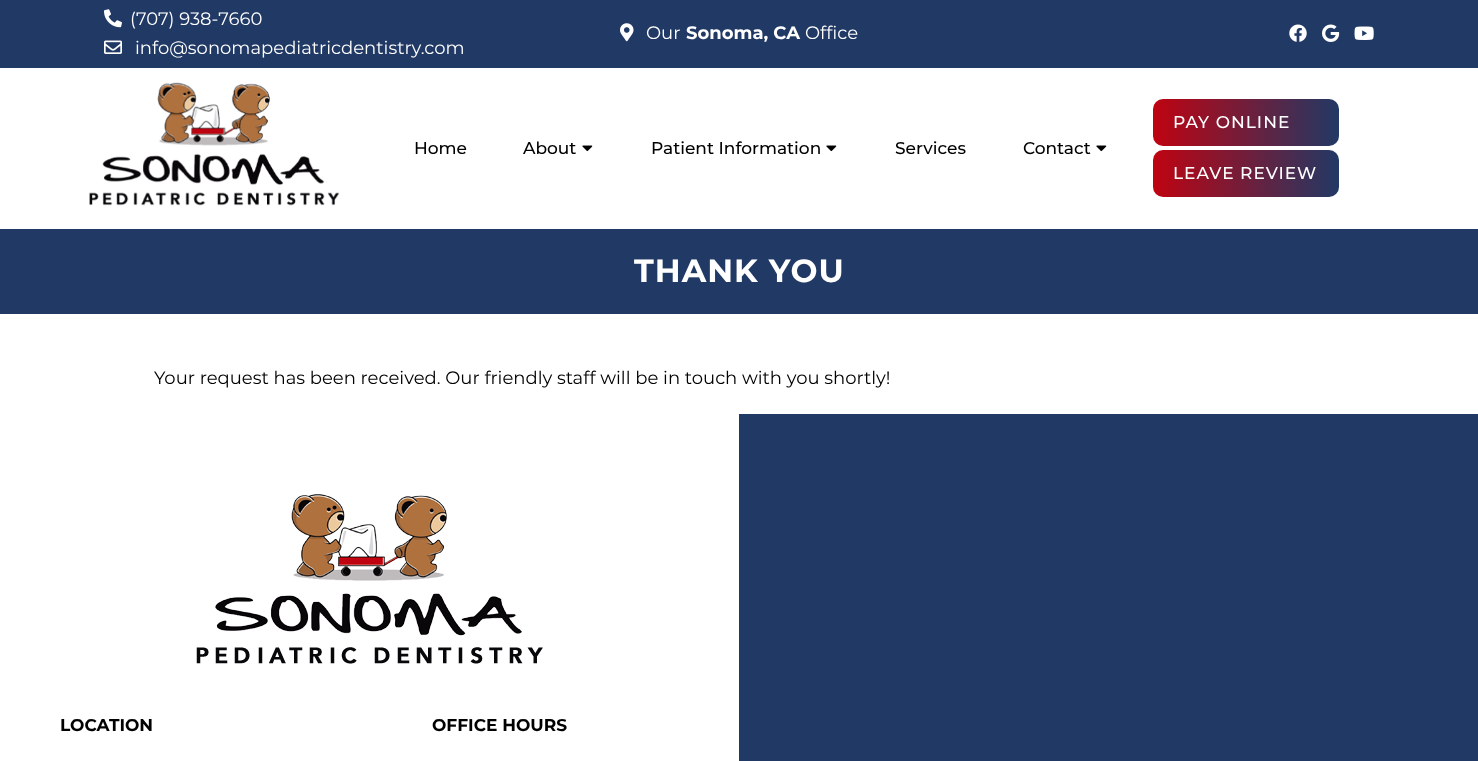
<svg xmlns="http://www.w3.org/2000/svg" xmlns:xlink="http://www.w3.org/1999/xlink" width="1478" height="761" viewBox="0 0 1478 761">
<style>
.cls-1{font:18px Montserrat;fill:#ffffff}
.cls-2{font:bold 18px Montserrat;fill:#ffffff}
.cls-3{font:500 17px Montserrat;fill:#000000}
.cls-4{font:500 17px Montserrat;letter-spacing:1px;fill:#ffffff}
.cls-5{font:bold 32px Montserrat;letter-spacing:1px;fill:#ffffff}
.cls-6{font:18px Montserrat;fill:#000000}
.cls-7{font:bold 17px Montserrat;fill:#000000}
</style>
<defs>
<linearGradient id="g1" gradientUnits="userSpaceOnUse" x1="1153" y1="123" x2="1339" y2="123"><stop offset="0" stop-color="#bf0311"/><stop offset="1" stop-color="#213965"/></linearGradient>
<linearGradient id="g2" gradientUnits="userSpaceOnUse" x1="1153" y1="174" x2="1339" y2="174"><stop offset="0" stop-color="#bf0311"/><stop offset="1" stop-color="#213965"/></linearGradient>
</defs>
<rect width="100%" height="100%" fill="#ffffff"/>
<rect fill="#213965" x="0" y="0" width="1478" height="68"/>
<image xlink:href="image0.png" x="104" y="9" width="18" height="19"/>
<image xlink:href="image1.png" x="104" y="40" width="18" height="14"/>
<image xlink:href="image2.png" x="620" y="23" width="14" height="19"/>
<image xlink:href="image3.png" x="1289" y="24" width="18" height="18"/>
<image xlink:href="image4.png" x="1322" y="24" width="18" height="18"/>
<image xlink:href="image5.png" x="1354" y="26" width="20" height="14"/>
<image xlink:href="image6.png" x="89" y="82" width="250" height="124"/>
<image xlink:href="image7.png" x="582" y="145" width="11" height="7"/>
<image xlink:href="image7.png" x="826" y="145" width="11" height="7"/>
<image xlink:href="image7.png" x="1096" y="145" width="11" height="7"/>
<rect fill="url(#g1)" x="1153" y="99" width="186" height="47" rx="10"/>
<rect fill="url(#g2)" x="1153" y="150" width="186" height="47" rx="10"/>
<rect fill="#213965" x="0" y="229" width="1478" height="85"/>
<rect fill="#213965" x="739" y="414" width="739" height="347"/>
<image xlink:href="image8.png" x="196" y="494" width="347" height="170"/>
<text class="cls-1" x="130" y="25">(707) 938-7660</text>
<text class="cls-1" x="135" y="54">info@sonomapediatricdentistry.com</text>
<text class="cls-1" x="646" y="39">Our</text>
<text class="cls-2" x="686" y="39">Sonoma, CA</text>
<text class="cls-1" x="805" y="39">Office</text>
<text class="cls-3" x="414" y="154">Home</text>
<text class="cls-3" x="523" y="154">About</text>
<text class="cls-3" x="651" y="154">Patient Information</text>
<text class="cls-3" x="895" y="154">Services</text>
<text class="cls-3" x="1023" y="154">Contact</text>
<text class="cls-4" x="1173" y="128">PAY ONLINE</text>
<text class="cls-4" x="1173" y="179">LEAVE REVIEW</text>
<text class="cls-5" x="634" y="282">THANK YOU</text>
<text class="cls-6" x="154" y="384">Your request has been received. Our friendly staff will be in touch with you shortly!</text>
<text class="cls-7" x="60" y="731">LOCATION</text>
<text class="cls-7" x="432" y="731">OFFICE HOURS</text>
</svg>
